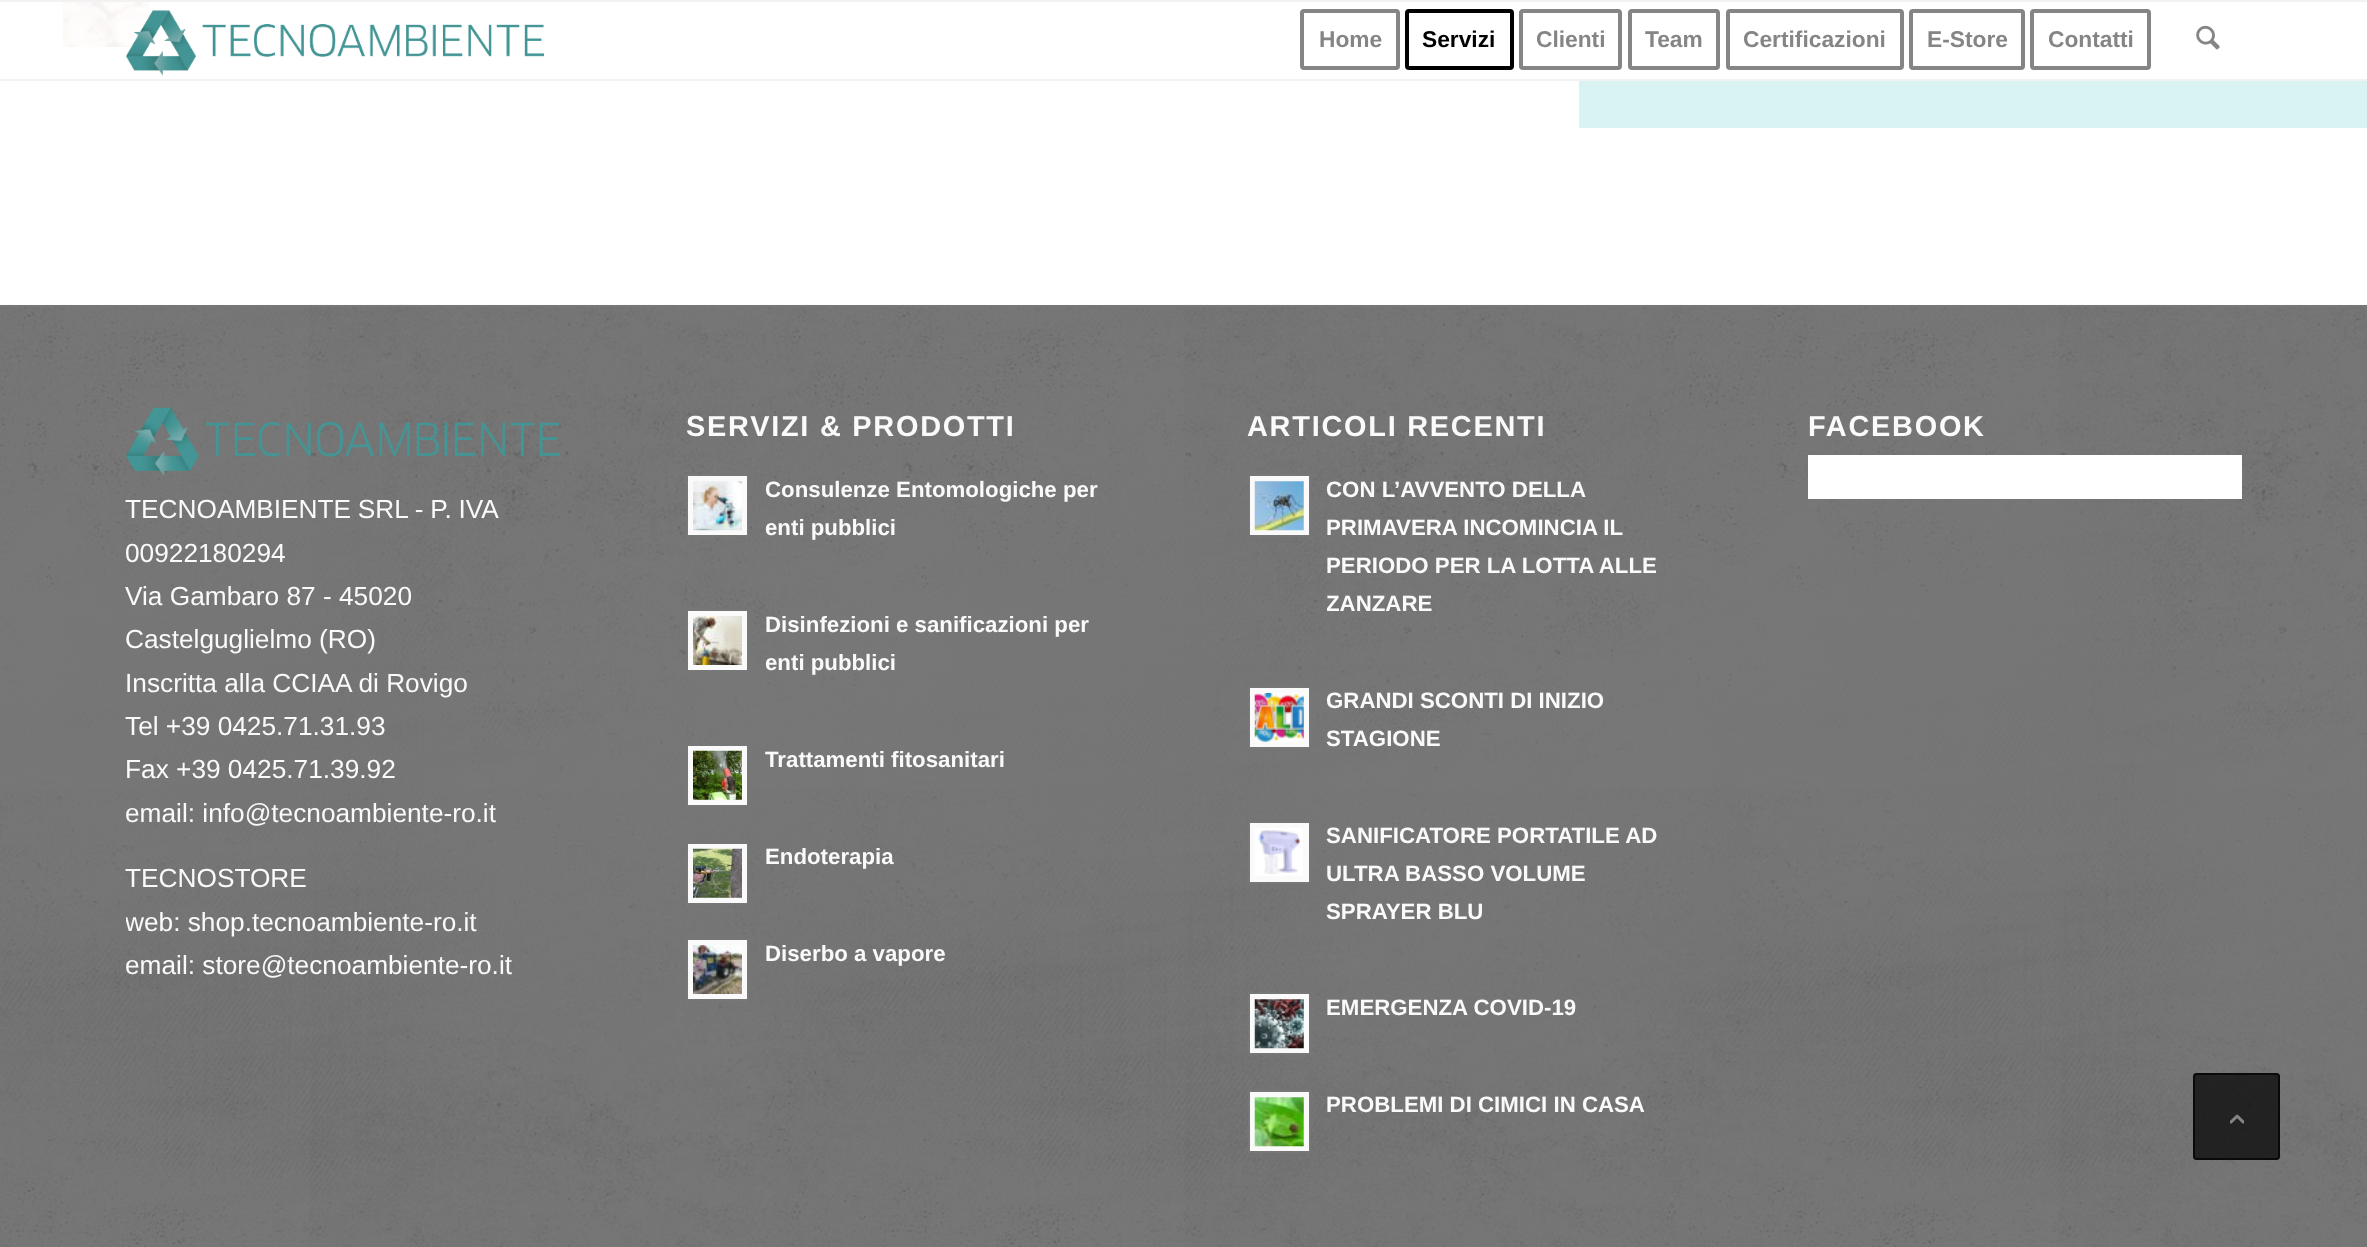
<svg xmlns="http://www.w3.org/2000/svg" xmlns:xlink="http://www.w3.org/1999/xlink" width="2367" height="1247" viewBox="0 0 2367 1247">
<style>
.cls-1{font:bold 22.75px Liberation Sans;fill:#858585}
.cls-2{font:bold 22.75px Liberation Sans;fill:#000000}
.cls-3{font:bold 28.9px Arimo;letter-spacing:1.75px;fill:#fafafa}
.cls-4{font:bold 22.25px Liberation Sans;fill:#fafafa}
.cls-5{font:26.25px Liberation Sans;fill:#fafafa}
</style>
<defs>
<clipPath id="clip1"><rect x="1327" y="471" width="355" height="191"/></clipPath>
<clipPath id="clip2"><rect x="126" y="385" width="434" height="625"/></clipPath>
</defs>
<rect width="100%" height="100%" fill="#ffffff"/>
<rect fill="#f2f2f2" x="0" y="0" width="2367" height="2"/>
<rect fill="#f2f2f2" x="0" y="79" width="2367" height="2"/>
<image xlink:href="image2.png" x="63" y="2" width="86" height="45"/>
<image xlink:href="image0.png" x="126" y="10" width="418" height="66"/>
<rect fill="none" stroke="#858585" stroke-width="4" x="1302" y="11" width="96" height="57" rx="2"/>
<rect fill="none" stroke="#000000" stroke-width="4" x="1407" y="11" width="105" height="57" rx="2"/>
<rect fill="none" stroke="#858585" stroke-width="4" x="1521" y="11" width="99" height="57" rx="2"/>
<rect fill="none" stroke="#858585" stroke-width="4" x="1630" y="11" width="88" height="57" rx="2"/>
<rect fill="none" stroke="#858585" stroke-width="4" x="1728" y="11" width="174" height="57" rx="2"/>
<rect fill="none" stroke="#858585" stroke-width="4" x="1911" y="11" width="112" height="57" rx="2"/>
<rect fill="none" stroke="#858585" stroke-width="4" x="2032" y="11" width="117" height="57" rx="2"/>
<image xlink:href="image1.png" x="2196" y="25" width="24" height="25"/>
<rect fill="#d9f2f2" x="1579" y="81" width="788" height="47"/>
<rect fill="#777777" x="0" y="307" width="2367" height="940"/>
<image xlink:href="image3.png" x="0" y="304" width="2367" height="943"/>
<rect fill="#777777" x="0" y="305" width="2367" height="2"/>
<rect fill="#fafafa" stroke="#777777" stroke-width="2" x="687" y="475" width="61" height="61"/>
<image xlink:href="image4.png" x="693" y="481" width="49" height="50"/>
<rect fill="#fafafa" stroke="#777777" stroke-width="2" x="687" y="610" width="61" height="61"/>
<image xlink:href="image5.png" x="693" y="616" width="49" height="49"/>
<rect fill="#fafafa" stroke="#777777" stroke-width="2" x="687" y="745" width="61" height="61"/>
<image xlink:href="image6.png" x="693" y="750" width="49" height="50"/>
<rect fill="#fafafa" stroke="#777777" stroke-width="2" x="687" y="843" width="61" height="61"/>
<image xlink:href="image7.png" x="693" y="848" width="49" height="50"/>
<rect fill="#fafafa" stroke="#777777" stroke-width="2" x="687" y="939" width="61" height="61"/>
<image xlink:href="image8.png" x="693" y="945" width="49" height="49"/>
<rect fill="#fafafa" stroke="#777777" stroke-width="2" x="1249" y="475" width="61" height="61"/>
<image xlink:href="image9.png" x="1254" y="481" width="50" height="50"/>
<rect fill="#fafafa" stroke="#777777" stroke-width="2" x="1249" y="687" width="61" height="61"/>
<image xlink:href="image10.png" x="1254" y="693" width="50" height="49"/>
<rect fill="#fafafa" stroke="#777777" stroke-width="2" x="1249" y="822" width="61" height="61"/>
<image xlink:href="image11.png" x="1255" y="828" width="48" height="48"/>
<rect fill="#fafafa" stroke="#777777" stroke-width="2" x="1249" y="993" width="61" height="61"/>
<image xlink:href="image12.png" x="1254" y="999" width="50" height="50"/>
<rect fill="#fafafa" stroke="#777777" stroke-width="2" x="1249" y="1091" width="61" height="61"/>
<image xlink:href="image13.png" x="1254" y="1097" width="50" height="50"/>
<rect fill="#ffffff" x="1808" y="455" width="434" height="44"/>
<image xlink:href="image14.png" x="126" y="407" width="434" height="69"/>
<rect fill="#000000" fill-opacity="0.7" x="2193" y="1073" width="87" height="87" rx="4"/>
<rect fill="none" stroke="#000000" stroke-opacity="0.7" stroke-width="2" x="2194" y="1074" width="85" height="85" rx="3"/>
<image xlink:href="image15.png" x="2230" y="1114" width="14" height="10"/>
<text class="cls-1" x="1319" y="47">Home</text>
<text class="cls-2" x="1422" y="47">Servizi</text>
<text class="cls-1" x="1536" y="47">Clienti</text>
<text class="cls-1" x="1645" y="47">Team</text>
<text class="cls-1" x="1743" y="47">Certificazioni</text>
<text class="cls-1" x="1927" y="47">E-Store</text>
<text class="cls-1" x="2048" y="47">Contatti</text>
<text class="cls-3" x="686" y="436">SERVIZI &amp; PRODOTTI</text>
<text class="cls-4"><tspan x="765" y="497">Consulenze Entomologiche per</tspan><tspan x="765" y="535">enti pubblici</tspan></text>
<text class="cls-4"><tspan x="765" y="632">Disinfezioni e sanificazioni per</tspan><tspan x="765" y="670">enti pubblici</tspan></text>
<text class="cls-4" x="765" y="767">Trattamenti fitosanitari</text>
<text class="cls-4" x="765" y="864">Endoterapia</text>
<text class="cls-4" x="765" y="961">Diserbo a vapore</text>
<text class="cls-3" x="1247" y="436">ARTICOLI RECENTI</text>
<text class="cls-4"><tspan x="1326" y="497">CON L’AVVENTO DELLA</tspan><tspan x="1326" y="535">PRIMAVERA INCOMINCIA IL</tspan><tspan x="1326" y="573">PERIODO PER LA LOTTA ALLE</tspan></text>
<g clip-path="url(#clip1)">
<text class="cls-4" x="1326" y="611">ZANZARE</text>
</g>
<text class="cls-4"><tspan x="1326" y="708">GRANDI SCONTI DI INIZIO</tspan><tspan x="1326" y="746">STAGIONE</tspan></text>
<text class="cls-4"><tspan x="1326" y="843">SANIFICATORE PORTATILE AD</tspan><tspan x="1326" y="881">ULTRA BASSO VOLUME</tspan><tspan x="1326" y="919">SPRAYER BLU</tspan></text>
<text class="cls-4" x="1326" y="1015">EMERGENZA COVID-19</text>
<text class="cls-4" x="1326" y="1112">PROBLEMI DI CIMICI IN CASA</text>
<text class="cls-3" x="1808" y="436">FACEBOOK</text>
<text class="cls-5"><tspan x="125" y="518" word-spacing="-0.5">TECNOAMBIENTE SRL - P. IVA</tspan><tspan x="125" y="562">00922180294</tspan><tspan x="125" y="605">Via Gambaro 87 - 45020</tspan><tspan x="125" y="648">Castelguglielmo (RO)</tspan><tspan x="125" y="692">Inscritta alla CCIAA di Rovigo</tspan><tspan x="125" y="735">Tel +39 0425.71.31.93</tspan><tspan x="125" y="778">Fax +39 0425.71.39.92</tspan><tspan x="125" y="822">email: info@tecnoambiente-ro.it</tspan></text>
<text class="cls-5" x="125" y="887">TECNOSTORE</text>
<g clip-path="url(#clip2)">
<text class="cls-5" x="125" y="931">web: shop.tecnoambiente-ro.it</text>
</g>
<text class="cls-5" x="125" y="974">email: store@tecnoambiente-ro.it</text>
</svg>
